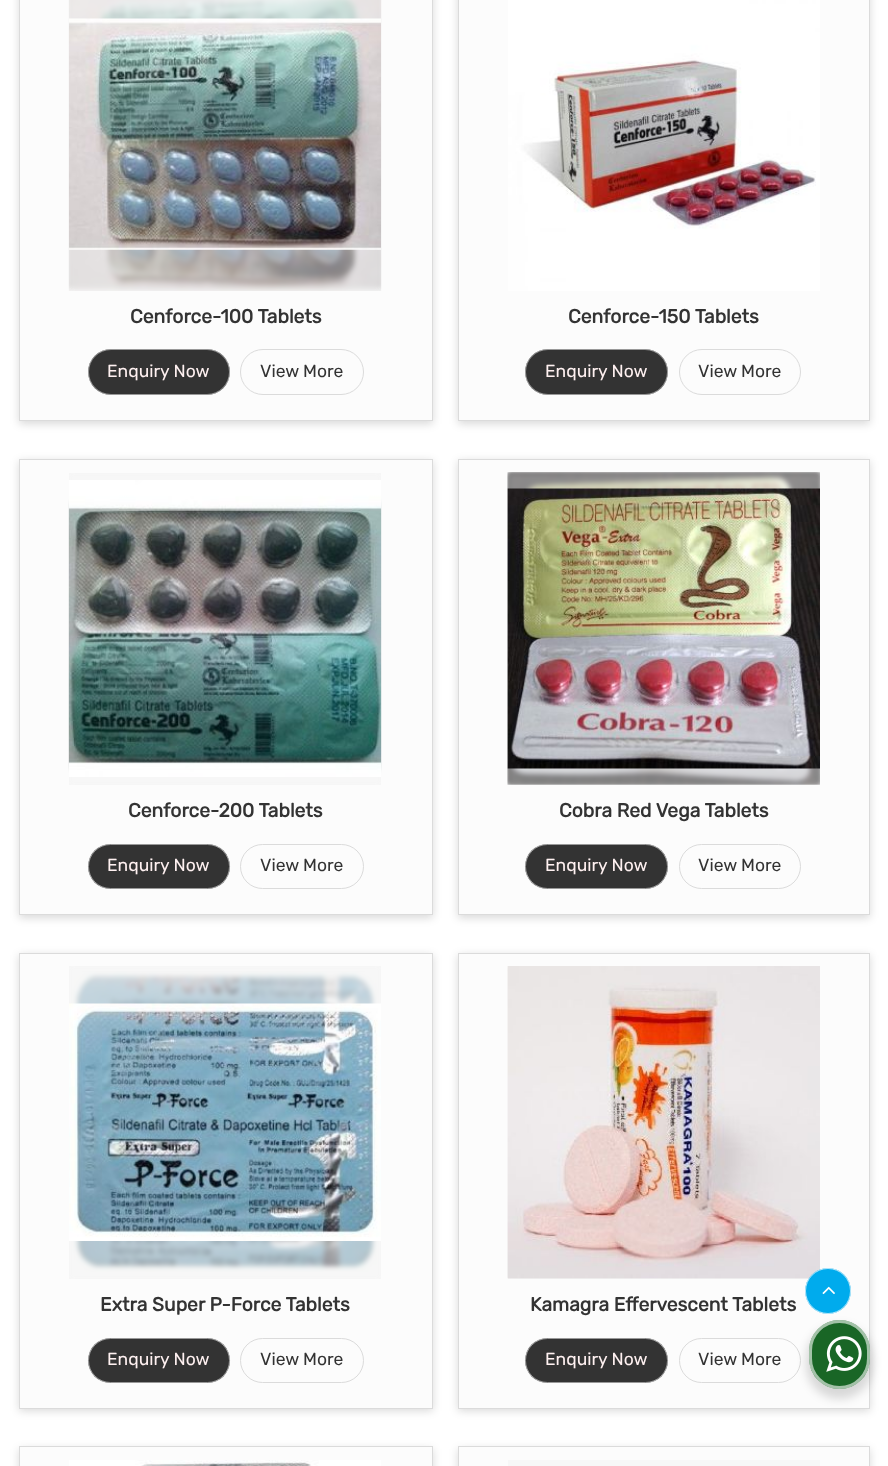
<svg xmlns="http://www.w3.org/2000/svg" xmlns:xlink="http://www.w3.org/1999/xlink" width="888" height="1466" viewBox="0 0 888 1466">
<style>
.cls-1{font:bold 19.25px Rubik;fill:#333333}
.cls-2{font:300 17.5px Rubik;fill:#fff1f1}
.cls-3{font:300 17.5px Rubik;fill:#333333}
</style>
<defs>
<clipPath id="clip1"><rect x="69" y="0" width="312" height="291"/></clipPath>
<clipPath id="clip2"><rect x="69" y="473" width="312" height="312"/></clipPath>
<clipPath id="clip3"><rect x="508" y="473" width="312" height="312"/></clipPath>
<clipPath id="clip4"><rect x="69" y="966" width="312" height="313"/></clipPath>
<clipPath id="clip5"><rect x="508" y="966" width="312" height="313"/></clipPath>
</defs>
<rect width="100%" height="100%" fill="#ffffff"/>
<rect fill="#000000" fill-opacity="0.15" filter="blur(4px)" x="19" y="-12" width="414" height="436"/>
<rect fill="#fcfcfc" stroke="#dbdbdb" x="19.5" y="-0.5" width="413" height="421"/>
<rect fill="#f7f7f7" x="69" y="0" width="312" height="291"/>
<image xlink:href="image0.png" x="68" y="0" width="314" height="291"/>
<g clip-path="url(#clip1)">
<rect fill="#f7f7f7" fill-opacity="0.5" filter="blur(2.5px)" x="69" y="-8" width="312" height="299"/>
</g>
<image xlink:href="image1.png" x="69" y="18" width="312" height="232"/>
<rect fill="#333333" x="88" y="349" width="142" height="46" rx="23"/>
<rect fill="none" stroke="#ffffff" stroke-opacity="0.5" x="88.5" y="349.5" width="141" height="45" rx="22.5"/>
<rect fill="none" stroke="#dbdbdb" x="240.5" y="349.5" width="123" height="45" rx="22.5"/>
<rect fill="#000000" fill-opacity="0.15" filter="blur(4px)" x="458" y="-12" width="412" height="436"/>
<rect fill="#fcfcfc" stroke="#dbdbdb" x="458.5" y="-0.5" width="411" height="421"/>
<image xlink:href="image2.png" x="508" y="0" width="312" height="291"/>
<rect fill="#333333" x="525" y="349" width="143" height="46" rx="23"/>
<rect fill="none" stroke="#ffffff" stroke-opacity="0.5" x="525.5" y="349.5" width="142" height="45" rx="22.5"/>
<rect fill="none" stroke="#dbdbdb" x="679.5" y="349.5" width="121" height="45" rx="22.5"/>
<rect fill="#000000" fill-opacity="0.15" filter="blur(4px)" x="19" y="461" width="414" height="457"/>
<rect fill="#fcfcfc" stroke="#dbdbdb" x="19.5" y="459.5" width="413" height="455"/>
<rect fill="#f7f7f7" x="69" y="473" width="312" height="312"/>
<image xlink:href="image3.png" x="68" y="496" width="314" height="279"/>
<g clip-path="url(#clip2)">
<rect fill="#f7f7f7" fill-opacity="0.5" filter="blur(2.5px)" x="69" y="473" width="312" height="312"/>
</g>
<image xlink:href="image4.png" x="68" y="480" width="314" height="297"/>
<rect fill="#333333" x="88" y="844" width="142" height="45" rx="22.5"/>
<rect fill="none" stroke="#ffffff" stroke-opacity="0.5" x="88.5" y="844.5" width="141" height="44" rx="22"/>
<rect fill="none" stroke="#dbdbdb" x="240.5" y="844.5" width="123" height="44" rx="22"/>
<rect fill="#000000" fill-opacity="0.15" filter="blur(4px)" x="458" y="461" width="412" height="457"/>
<rect fill="#fcfcfc" stroke="#dbdbdb" x="458.5" y="459.5" width="411" height="455"/>
<rect fill="#f7f7f7" x="508" y="473" width="312" height="312"/>
<image xlink:href="image5.png" x="507" y="472" width="313" height="313"/>
<g clip-path="url(#clip3)">
<rect fill="#f7f7f7" fill-opacity="0.5" filter="blur(2.5px)" x="508" y="473" width="312" height="312"/>
</g>
<image xlink:href="image6.png" x="507" y="488" width="313" height="281"/>
<rect fill="#333333" x="525" y="844" width="143" height="45" rx="22.5"/>
<rect fill="none" stroke="#ffffff" stroke-opacity="0.5" x="525.5" y="844.5" width="142" height="44" rx="22"/>
<rect fill="none" stroke="#dbdbdb" x="679.5" y="844.5" width="121" height="44" rx="22"/>
<rect fill="#000000" fill-opacity="0.15" filter="blur(4px)" x="19" y="955" width="414" height="456"/>
<rect fill="#fcfcfc" stroke="#dbdbdb" x="19.5" y="953.5" width="413" height="455"/>
<rect fill="#f7f7f7" x="69" y="966" width="312" height="313"/>
<image xlink:href="image7.png" x="71" y="971" width="307" height="301"/>
<g clip-path="url(#clip4)">
<rect fill="#f7f7f7" fill-opacity="0.5" filter="blur(2.5px)" x="69" y="966" width="312" height="313"/>
</g>
<image xlink:href="image8.png" x="69" y="1003" width="312" height="238"/>
<rect fill="#333333" x="88" y="1338" width="142" height="45" rx="22.5"/>
<rect fill="none" stroke="#ffffff" stroke-opacity="0.5" x="88.5" y="1338.5" width="141" height="44" rx="22"/>
<rect fill="none" stroke="#dbdbdb" x="240.5" y="1338.5" width="123" height="44" rx="22"/>
<rect fill="#000000" fill-opacity="0.15" filter="blur(4px)" x="458" y="955" width="412" height="456"/>
<rect fill="#fcfcfc" stroke="#dbdbdb" x="458.5" y="953.5" width="411" height="455"/>
<rect fill="#f7f7f7" x="508" y="1278" width="301" height="1"/>
<image xlink:href="image9.png" x="507" y="966" width="302" height="313"/>
<g clip-path="url(#clip5)">
<rect fill="#f7f7f7" fill-opacity="0.5" filter="blur(2.5px)" x="508" y="966" width="312" height="313"/>
</g>
<image xlink:href="image10.png" x="507" y="966" width="313" height="313"/>
<rect fill="#333333" x="525" y="1338" width="143" height="45" rx="22.5"/>
<rect fill="none" stroke="#ffffff" stroke-opacity="0.5" x="525.5" y="1338.5" width="142" height="44" rx="22"/>
<rect fill="none" stroke="#dbdbdb" x="679.5" y="1338.5" width="121" height="44" rx="22"/>
<rect fill="#000000" fill-opacity="0.15" filter="blur(4px)" x="19" y="1449" width="414" height="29"/>
<rect fill="#fcfcfc" stroke="#dbdbdb" x="19.5" y="1446.5" width="413" height="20"/>
<image xlink:href="image11.png" x="69" y="1460" width="312" height="6"/>
<rect fill="#000000" fill-opacity="0.15" filter="blur(4px)" x="458" y="1449" width="412" height="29"/>
<rect fill="#fcfcfc" stroke="#dbdbdb" x="458.5" y="1446.5" width="411" height="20"/>
<rect fill="#f7f7f7" x="508" y="1460" width="312" height="6"/>
<circle fill="#00abed" cx="828" cy="1291" r="23"/>
<circle fill="none" stroke="#ffffff" stroke-opacity="0.7" cx="828" cy="1291" r="22.5"/>
<image xlink:href="image12.png" x="822" y="1286" width="13" height="9"/>
<rect fill="#000000" fill-opacity="0.14" filter="blur(5px)" x="806" y="1325" width="67" height="74" rx="33.5"/>
<rect fill="#196626" x="809" y="1320" width="61" height="69" rx="30.5"/>
<rect fill="none" stroke="#ffffff" stroke-opacity="0.6" stroke-width="3" x="810.5" y="1321.5" width="58" height="66" rx="29"/>
<image xlink:href="image13.png" x="826" y="1336" width="36" height="36"/>
<text class="cls-1" x="130" y="323">Cenforce-100 Tablets</text>
<text class="cls-2" x="107" y="377">Enquiry Now</text>
<text class="cls-3" x="260" y="377">View More</text>
<text class="cls-1" x="568" y="323">Cenforce-150 Tablets</text>
<text class="cls-2" x="545" y="377">Enquiry Now</text>
<text class="cls-3" x="698" y="377">View More</text>
<text class="cls-1" x="128" y="817">Cenforce-200 Tablets</text>
<text class="cls-2" x="107" y="871">Enquiry Now</text>
<text class="cls-3" x="260" y="871">View More</text>
<text class="cls-1" x="559" y="817">Cobra Red Vega Tablets</text>
<text class="cls-2" x="545" y="871">Enquiry Now</text>
<text class="cls-3" x="698" y="871">View More</text>
<text class="cls-1" x="100" y="1311">Extra Super P-Force Tablets</text>
<text class="cls-2" x="107" y="1365">Enquiry Now</text>
<text class="cls-3" x="260" y="1365">View More</text>
<text class="cls-1" x="530" y="1311">Kamagra Effervescent Tablets</text>
<text class="cls-2" x="545" y="1365">Enquiry Now</text>
<text class="cls-3" x="698" y="1365">View More</text>
</svg>
